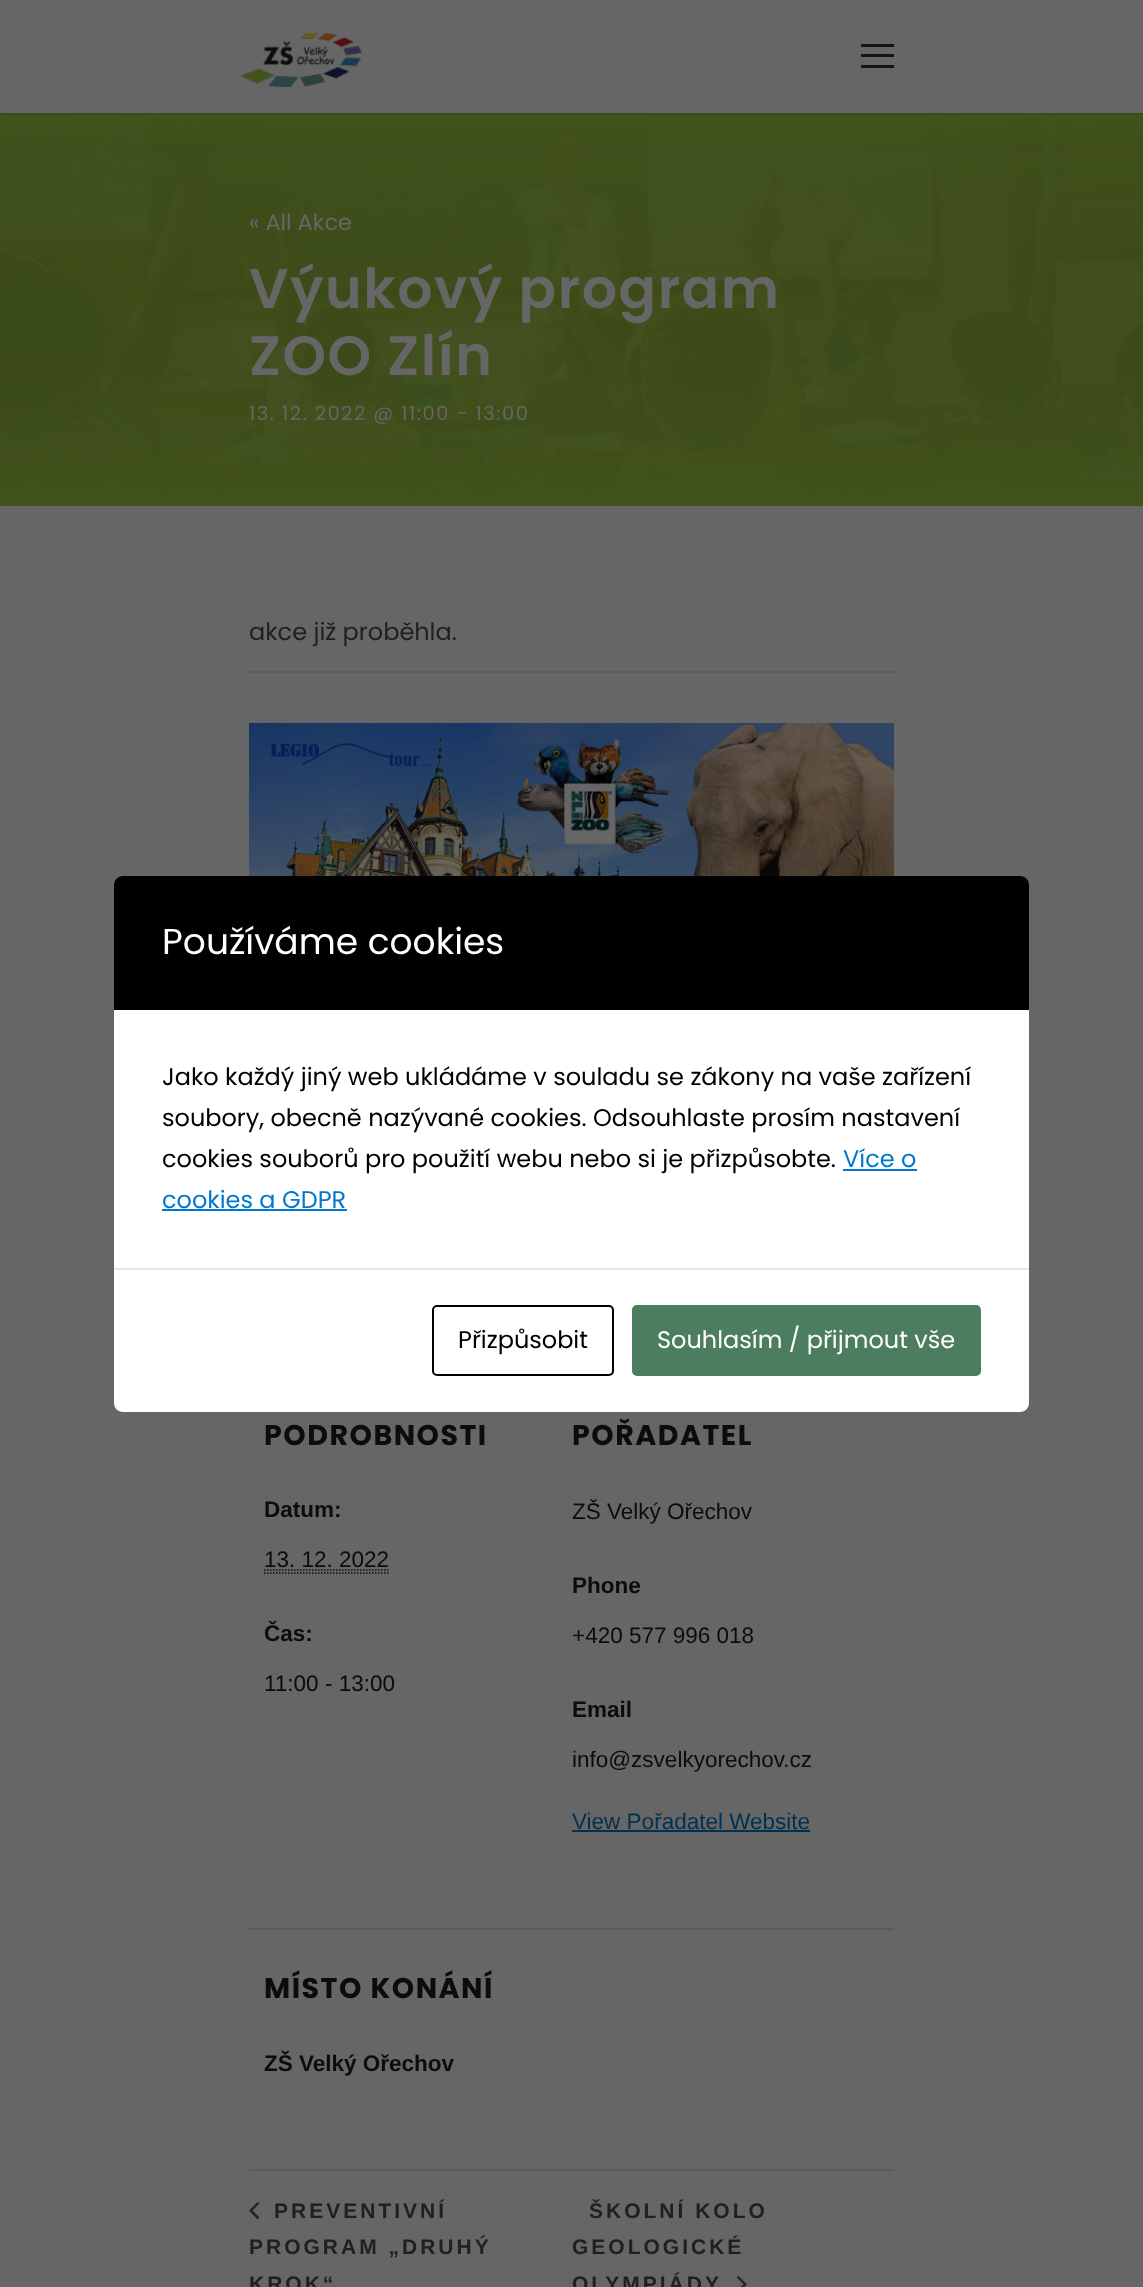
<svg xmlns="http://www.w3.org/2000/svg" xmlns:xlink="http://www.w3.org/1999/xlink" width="1143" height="2287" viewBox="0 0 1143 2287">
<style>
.cls-1{font:22.5px Poppins;fill:#666666}
.cls-2{font:600 55.5px Poppins;letter-spacing:1.5px;fill:#666666}
.cls-3{font:19.5px Poppins;letter-spacing:1.5px;fill:#666666}
.cls-4{font:24px Poppins;fill:#202020}
.cls-5{font:bold 28.5px Poppins;letter-spacing:1.5px;fill:#0c0c0c}
.cls-6{font:bold 22.5px Liberation Sans;fill:#0c0c0c}
.cls-7{font:22.5px Liberation Sans;fill:#0c0c0c}
.cls-8{font:22.5px Liberation Sans;fill:#003052}
.cls-9{font:bold 21px Liberation Sans;letter-spacing:3px;fill:#202020}
.cls-10{font:36px Poppins;fill:#ffffff}
.cls-11{font:24px Poppins;fill:#000000}
.cls-12{font:24px Poppins;fill:#0078ce}
.cls-13{font:24px Poppins;fill:#ffffff}
</style>
<defs>
<linearGradient id="g1" gradientUnits="userSpaceOnUse" x1="572" y1="732" x2="572" y2="113"><stop offset="0" stop-color="#41521b" stop-opacity="0"/><stop offset="1" stop-color="#41521b"/></linearGradient>
<linearGradient id="g2" gradientUnits="userSpaceOnUse" x1="572" y1="-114" x2="572" y2="506"><stop offset="0" stop-color="#41521b" stop-opacity="0"/><stop offset="1" stop-color="#41521b"/></linearGradient>
</defs>
<rect width="100%" height="100%" fill="#666666"/>
<image xlink:href="image1.png" x="0" y="117" width="1143" height="385"/>
<rect fill="url(#g1)" x="0" y="113" width="1143" height="389"/>
<rect fill="#000000" fill-opacity="0.1" filter="blur(1.5px)" x="0" y="2" width="1143" height="112"/>
<rect fill="#666666" x="0" y="1" width="1143" height="112"/>
<image xlink:href="image0.png" x="241" y="32" width="121" height="55"/>
<rect fill="#141414" x="861" y="44" width="33" height="3"/>
<rect fill="#141414" x="861" y="54" width="33" height="3"/>
<rect fill="#141414" x="861" y="65" width="33" height="3"/>
<rect fill="url(#g2)" x="0" y="154" width="1143" height="352"/>
<rect fill="#5c5c5c" x="249" y="671" width="645" height="2"/>
<image xlink:href="image2.png" x="249" y="723" width="645" height="153"/>
<path fill="none" stroke="#0c0c0c" stroke-width="1.5" stroke-dasharray="1.5 1.5" d="M264 1573H388.5"/>
<path fill="none" stroke="#0c0c0c" stroke-width="1.5" stroke-dasharray="1.5 1.5" d="M264 1570H389"/>
<rect fill="#003052" x="572" y="1830" width="238" height="2"/>
<rect fill="#5b5b5b" x="249" y="1928" width="645" height="2"/>
<rect fill="#5b5b5b" x="249" y="2169" width="645" height="2"/>
<path fill="#252525" d="M259.5 2217.5L257.5 2219.5L249 2210.5L257.5 2202L259.5 2203.5L252.5 2210.5Z"/>
<image xlink:href="image3.png" x="737" y="2276" width="10" height="11"/>
<path fill="#000000" d="M123 876H1020C1025 876 1029 880 1029 885V1010H114V885C114 880 118 876 123 876Z"/>
<rect fill="#ffffff" x="114" y="1010" width="915" height="258"/>
<rect fill="#0078ce" x="843" y="1169" width="74" height="2"/>
<rect fill="#0078ce" x="162" y="1209" width="185" height="2"/>
<path fill="#ffffff" d="M114 1268H1029V1403C1029 1408 1025 1412 1020 1412H123C118 1412 114 1408 114 1403Z"/>
<rect fill="#e6e6e6" x="114" y="1268" width="915" height="2"/>
<rect fill="none" stroke="#000000" stroke-width="2" x="433" y="1306" width="180" height="69" rx="4"/>
<rect fill="#4b7d5e" stroke="#4b7d5e" stroke-width="2" x="633" y="1306" width="347" height="69" rx="4"/>
<text class="cls-1" x="249" y="230">« All Akce</text>
<text class="cls-2"><tspan x="249" y="308">Výukový program</tspan><tspan x="249" y="375">ZOO Zlín</tspan></text>
<text class="cls-3" x="249" y="420">13. 12. 2022 @ 11:00 - 13:00</text>
<text class="cls-4" x="249" y="640">akce již proběhla.</text>
<text class="cls-5" x="264" y="1445">PODROBNOSTI</text>
<text class="cls-6" x="264" y="1517">Datum:</text>
<text class="cls-7" x="264" y="1567">13. 12. 2022</text>
<text class="cls-6" x="264" y="1641">Čas:</text>
<text class="cls-7" x="264" y="1691">11:00 - 13:00</text>
<text class="cls-5" x="572" y="1445">POŘADATEL</text>
<text class="cls-7" x="572" y="1519">ZŠ Velký Ořechov</text>
<text class="cls-6" x="572" y="1593">Phone</text>
<text class="cls-7" x="572" y="1643">+420 577 996 018</text>
<text class="cls-6" x="572" y="1717">Email</text>
<text class="cls-7" x="572" y="1767">info@zsvelkyorechov.cz</text>
<text class="cls-8" x="572" y="1829">View Pořadatel Website</text>
<text class="cls-5" x="264" y="1998">MÍSTO KONÁNÍ</text>
<text class="cls-6" x="264" y="2071">ZŠ Velký Ořechov</text>
<text class="cls-9" x="274" y="2218">PREVENTIVNÍ</text>
<text class="cls-9"><tspan x="249" y="2254">PROGRAM „DRUHÝ</tspan><tspan x="249" y="2291">KROK“</tspan></text>
<text class="cls-9" x="589" y="2218">ŠKOLNÍ KOLO</text>
<text class="cls-9"><tspan x="572" y="2254">GEOLOGICKÉ</tspan><tspan x="572" y="2291">OLYMPIÁDY</tspan></text>
<text class="cls-10" x="162" y="954">Používáme cookies</text>
<text class="cls-11"><tspan x="162" y="1085">Jako každý jiný web ukládáme v souladu se zákony na vaše zařízení</tspan><tspan x="162" y="1126">soubory, obecně nazývané cookies. Odsouhlaste prosím nastavení</tspan><tspan x="162" y="1167">cookies souborů pro použití webu nebo si je přizpůsobte.</tspan></text>
<text class="cls-12" x="843" y="1167">Více o</text>
<text class="cls-12" x="162" y="1208">cookies a GDPR</text>
<text class="cls-11" x="458" y="1348">Přizpůsobit</text>
<text class="cls-13" x="657" y="1348">Souhlasím / přijmout vše</text>
</svg>
